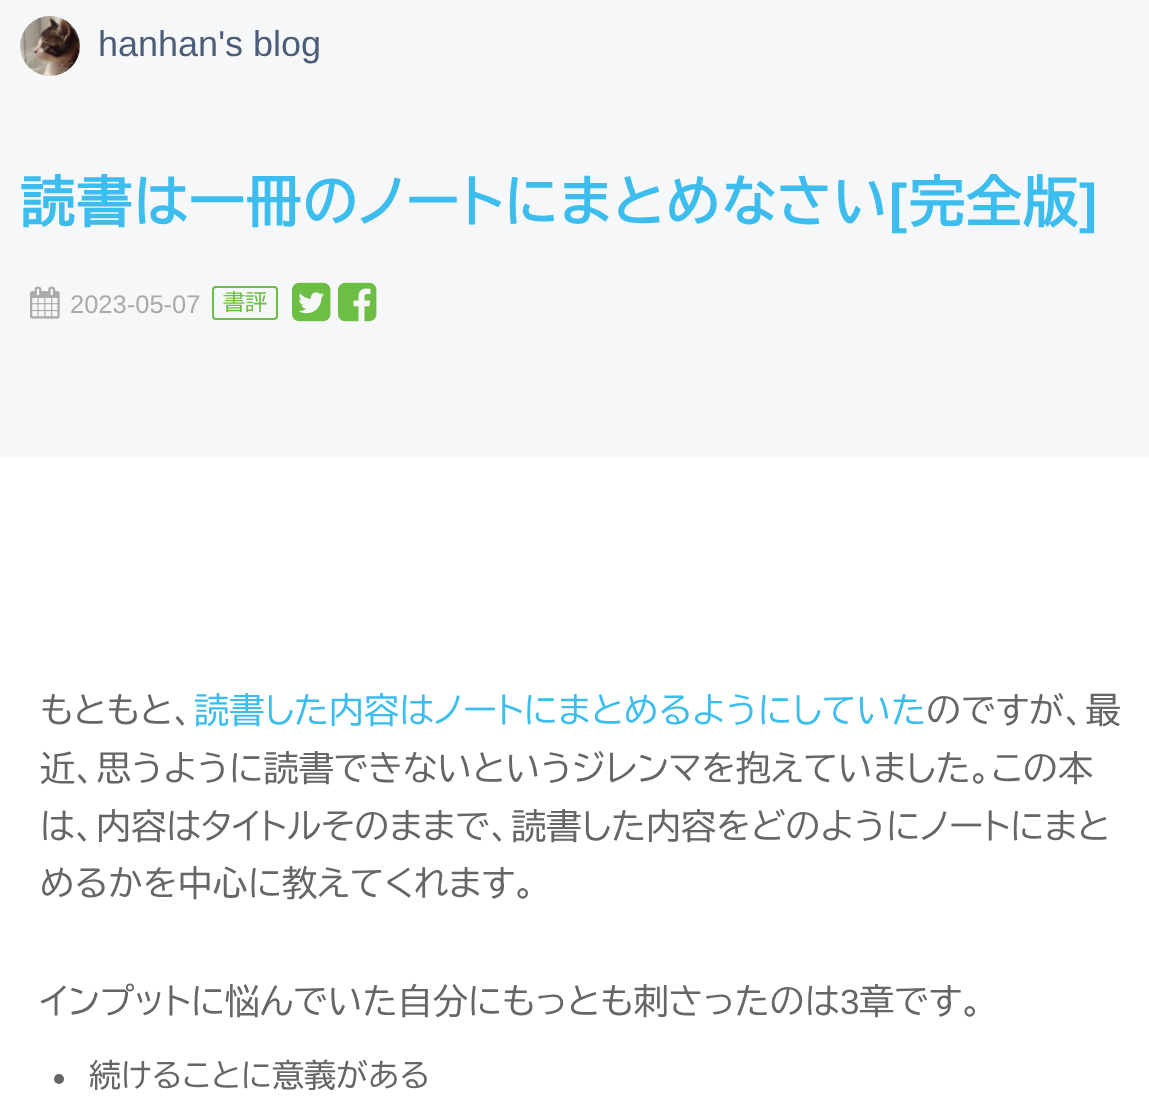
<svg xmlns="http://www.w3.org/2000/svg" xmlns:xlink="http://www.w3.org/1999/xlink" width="1149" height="1115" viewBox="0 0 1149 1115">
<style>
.cls-1{font:36px Liberation Sans;fill:#4c5d79}
.cls-2{font:bold 54.4px BIZ UDPGothic;letter-spacing:2.2px;fill:#3dbdee}
.cls-3{font:bold 54.4px Liberation Sans;letter-spacing:2.2px;fill:#3dbdee}
.cls-4{font:25.5px Liberation Sans;fill:#aaaaaa}
.cls-5{font:22px BIZ UDPGothic;fill:#6dbe44}
.cls-6{font:35.2px BIZ UDPGothic;fill:#666666}
.cls-7{font:35.2px BIZ UDPGothic;fill:#3dbdee}
.cls-8{font:35.2px Liberation Sans;fill:#666666}
.cls-9{font:32px BIZ UDPGothic;fill:#666666}
</style>
<rect width="100%" height="100%" fill="#ffffff"/>
<rect fill="#f5f7f8" x="0" y="0" width="1149" height="458"/>
<image xlink:href="image0.png" x="20" y="16" width="60" height="60"/>
<image xlink:href="image1.png" x="30" y="286" width="30" height="33"/>
<rect fill="none" stroke="#6dbe44" stroke-width="2" x="213" y="287" width="64" height="32" rx="3"/>
<image xlink:href="image2.png" x="292" y="282" width="39" height="40"/>
<image xlink:href="image3.png" x="338" y="282" width="39" height="40"/>
<circle fill="#666666" cx="59" cy="1079" r="5"/>
<text class="cls-1" x="98" y="56">hanhan's blog</text>
<text class="cls-2" x="20" y="222">読書は一冊のノートにまとめなさい 完全版</text>
<text class="cls-3" x="889" y="222">[</text>
<text class="cls-3" x="1079" y="222">]</text>
<text class="cls-4" x="70" y="313">2023-05-07</text>
<text class="cls-5" x="223" y="310">書評</text>
<text class="cls-6" x="40" y="723">もともと、</text>
<text class="cls-7" x="194" y="723">読書した内容はノートにまとめるようにしていた</text>
<text class="cls-6" x="926" y="723">のですが、最</text>
<text class="cls-6"><tspan x="40" y="781">近、思うように読書できないというジレンマを抱えていました。この本</tspan><tspan x="40" y="839">は、内容はタイトルそのままで、読書した内容をどのようにノートにまと</tspan><tspan x="40" y="896">めるかを中心に教えてくれます。</tspan></text>
<text class="cls-6" x="40" y="1014">インプットに悩んでいた自分にもっとも刺さったのは</text>
<text class="cls-8" x="840" y="1014">3</text>
<text class="cls-6" x="859" y="1014">章です。</text>
<text class="cls-9" x="89" y="1087">続けることに意義がある</text>
</svg>
